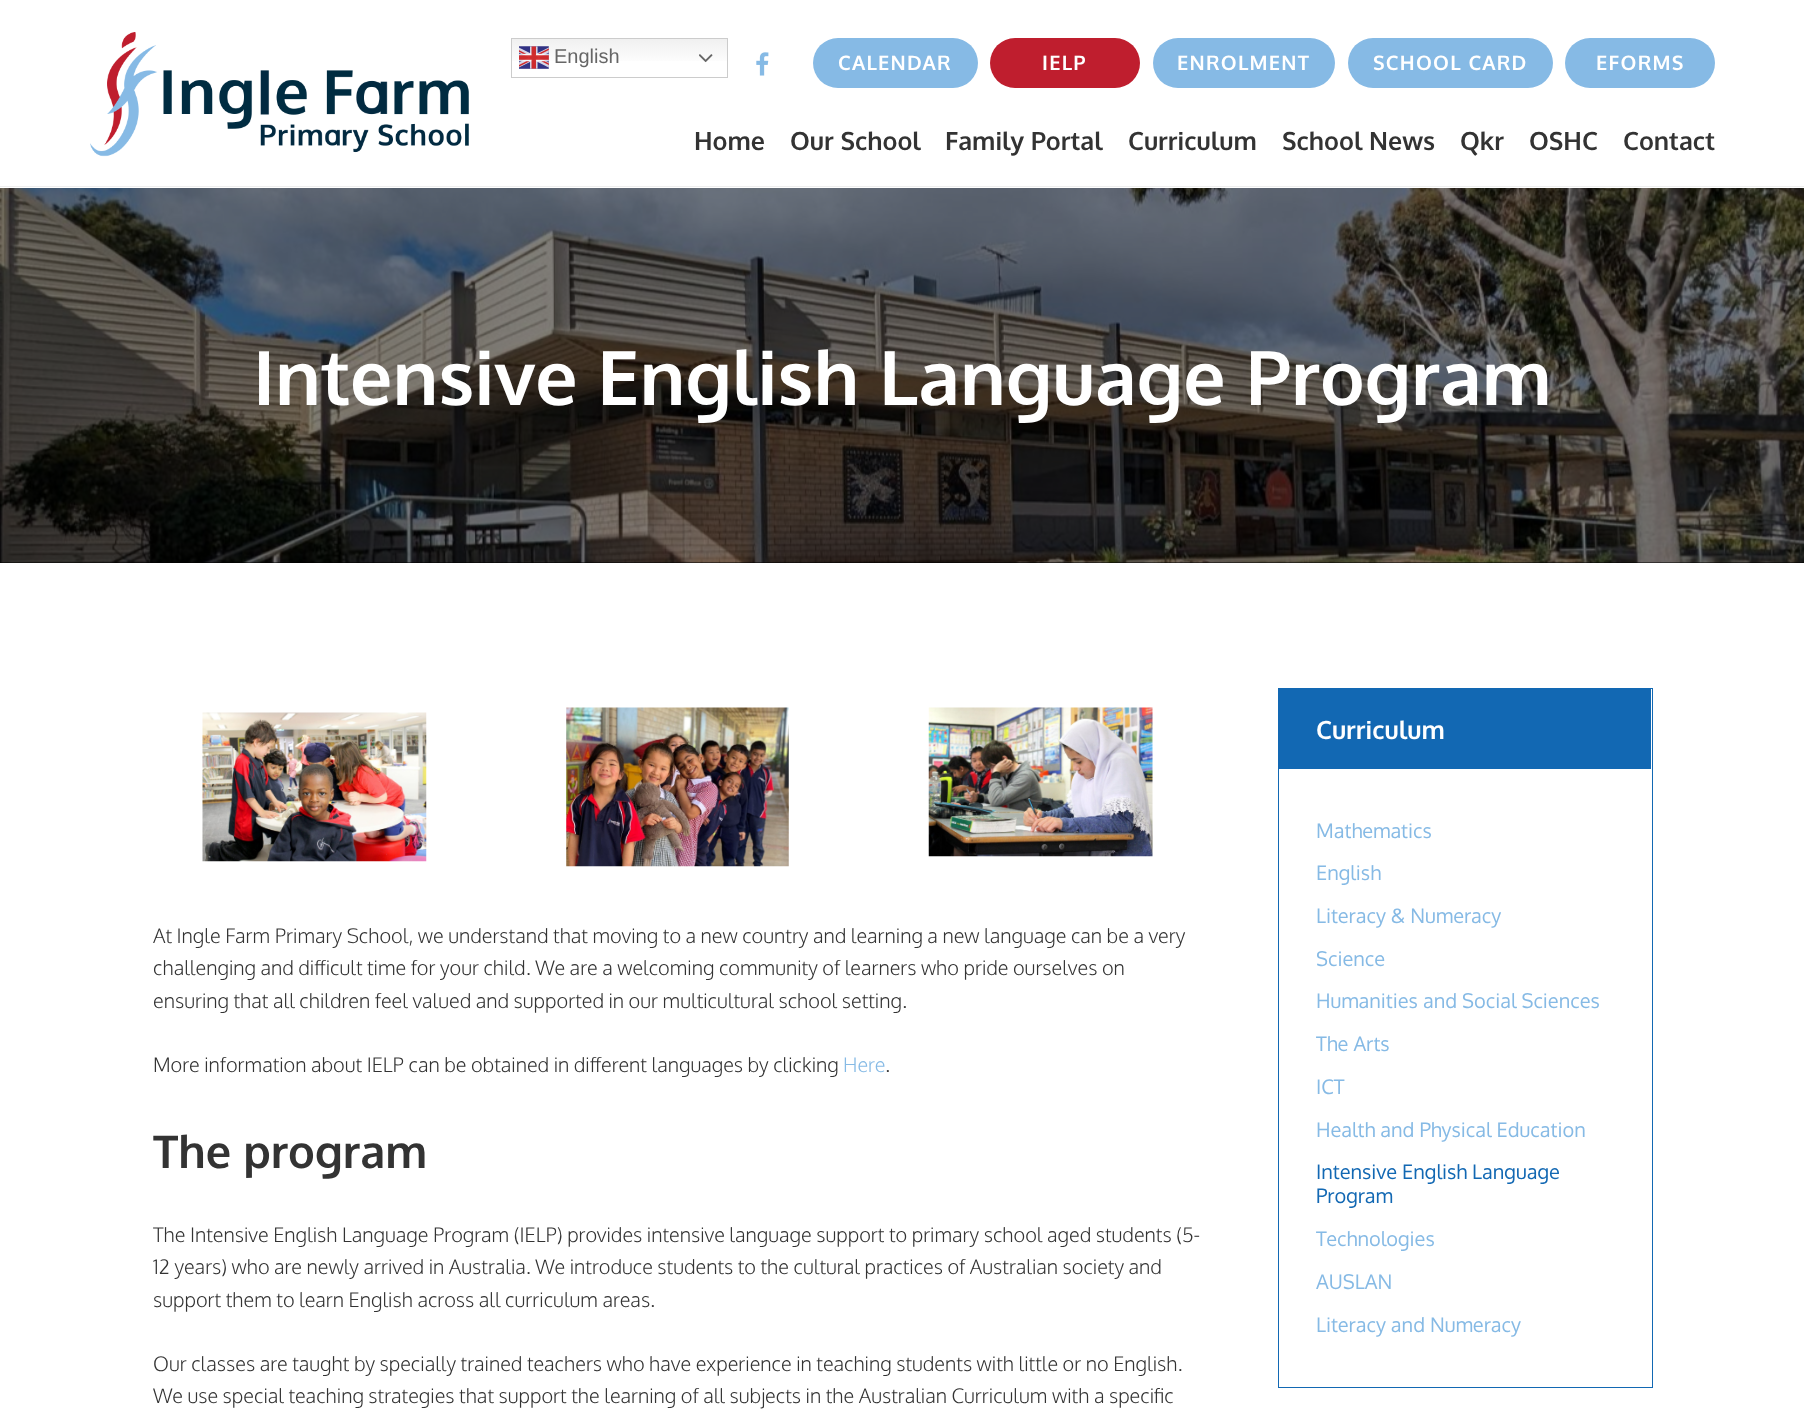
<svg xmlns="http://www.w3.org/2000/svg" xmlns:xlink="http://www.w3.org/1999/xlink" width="1804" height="1419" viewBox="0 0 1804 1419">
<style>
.cls-1{font:20px Liberation Sans;fill:#666666}
.cls-2{font:bold 20px Oxygen;letter-spacing:1.25px;fill:#ffffff}
.cls-3{font:bold 25px Oxygen;fill:#333333}
.cls-4{font:bold 75px Oxygen;fill:#ffffff}
.cls-5{font:300 20px Oxygen;fill:#333333}
.cls-6{font:300 20px Oxygen;fill:#86bae5}
.cls-7{font:bold 45px Oxygen;fill:#333333}
.cls-8{font:bold 25px Oxygen;fill:#ffffff}
.cls-9{font:20px Oxygen;fill:#86bae5}
.cls-10{font:20px Oxygen;fill:#1268b3}
</style>
<defs>
<linearGradient id="g1" gradientUnits="userSpaceOnUse" x1="619" y1="37" x2="619" y2="78"><stop offset="0" stop-color="#efefef"/><stop offset="0.7" stop-color="#ffffff"/></linearGradient>
</defs>
<rect width="100%" height="100%" fill="#ffffff"/>
<rect fill="#eeeeee" x="0" y="186" width="1804" height="1"/>
<image xlink:href="image0.png" x="90" y="32" width="379" height="125"/>
<rect fill="url(#g1)" x="512" y="39" width="215" height="22"/>
<rect fill="none" stroke="#cccccc" x="511.5" y="38.5" width="216" height="39"/>
<image xlink:href="image1.png" x="519" y="46" width="30" height="23"/>
<image xlink:href="image2.png" x="699" y="54" width="14" height="9"/>
<image xlink:href="image3.png" x="756" y="52" width="13" height="24"/>
<rect fill="#86bae5" x="813" y="38" width="165" height="50" rx="25"/>
<rect fill="#bf1e2e" x="990" y="38" width="150" height="50" rx="25"/>
<rect fill="#86bae5" x="1153" y="38" width="182" height="50" rx="25"/>
<rect fill="#86bae5" x="1348" y="38" width="205" height="50" rx="25"/>
<rect fill="#86bae5" x="1565" y="38" width="150" height="50" rx="25"/>
<rect fill="#000000" x="0" y="188" width="1804" height="375"/>
<image xlink:href="image4.png" x="0" y="188" width="1804" height="375"/>
<image xlink:href="image5.png" x="202" y="712" width="225" height="150"/>
<image xlink:href="image6.png" x="566" y="707" width="223" height="160"/>
<image xlink:href="image7.png" x="928" y="707" width="225" height="150"/>
<rect fill="none" stroke="#1268b3" x="1278.5" y="688.5" width="374" height="699"/>
<rect fill="#1268b3" x="1279" y="689" width="372" height="80"/>
<text class="cls-1" x="554" y="63">English</text>
<text class="cls-2" x="838" y="70">CALENDAR</text>
<text class="cls-2" x="1042" y="70">IELP</text>
<text class="cls-2" x="1177" y="70">ENROLMENT</text>
<text class="cls-2" x="1373" y="70">SCHOOL CARD</text>
<text class="cls-2" x="1596" y="70">EFORMS</text>
<text class="cls-3" x="694" y="150">Home</text>
<text class="cls-3" x="790" y="150">Our School</text>
<text class="cls-3" x="945" y="150">Family Portal</text>
<text class="cls-3" x="1128" y="150">Curriculum</text>
<text class="cls-3" x="1282" y="150">School News</text>
<text class="cls-3" x="1460" y="150">Qkr</text>
<text class="cls-3" x="1529" y="150">OSHC</text>
<text class="cls-3" x="1623" y="150">Contact</text>
<text class="cls-4" x="253" y="405">Intensive English Language Program</text>
<text class="cls-5"><tspan x="153" y="943">At Ingle Farm Primary School, we understand that moving to a new country and learning a new language can be a very</tspan><tspan x="153" y="975">challenging and difficult time for your child. We are a welcoming community of learners who pride ourselves on</tspan><tspan x="153" y="1008">ensuring that all children feel valued and supported in our multicultural school setting.</tspan></text>
<text class="cls-5" x="153" y="1072">More information about IELP can be obtained in different languages by clicking</text>
<text class="cls-6" x="843" y="1072">Here</text>
<text class="cls-5" x="885" y="1072">.</text>
<text class="cls-7" x="153" y="1168">The program</text>
<text class="cls-5"><tspan x="153" y="1242">The Intensive English Language Program (IELP) provides intensive language support to primary school aged students (5-</tspan><tspan x="153" y="1274">12 years) who are newly arrived in Australia. We introduce students to the cultural practices of Australian society and</tspan><tspan x="153" y="1307">support them to learn English across all curriculum areas.</tspan></text>
<text class="cls-5"><tspan x="153" y="1371">Our classes are taught by specially trained teachers who have experience in teaching students with little or no English.</tspan><tspan x="153" y="1403">We use special teaching strategies that support the learning of all subjects in the Australian Curriculum with a specific</tspan></text>
<text class="cls-8" x="1316" y="739">Curriculum</text>
<text class="cls-9" x="1316" y="838">Mathematics</text>
<text class="cls-9" x="1316" y="880">English</text>
<text class="cls-9" x="1316" y="923">Literacy &amp; Numeracy</text>
<text class="cls-9" x="1316" y="966">Science</text>
<text class="cls-9" x="1316" y="1008">Humanities and Social Sciences</text>
<text class="cls-9" x="1316" y="1051">The Arts</text>
<text class="cls-9" x="1316" y="1094">ICT</text>
<text class="cls-9" x="1316" y="1137">Health and Physical Education</text>
<text class="cls-10"><tspan x="1316" y="1179">Intensive English Language</tspan><tspan x="1316" y="1203">Program</tspan></text>
<text class="cls-9" x="1316" y="1246">Technologies</text>
<text class="cls-9" x="1316" y="1289">AUSLAN</text>
<text class="cls-9" x="1316" y="1332">Literacy and Numeracy</text>
</svg>
